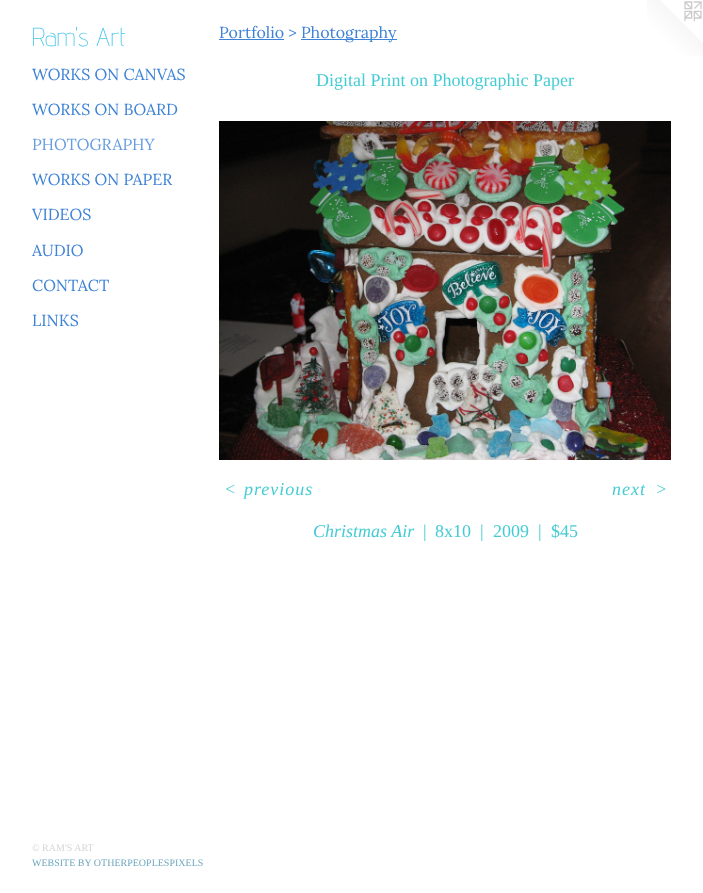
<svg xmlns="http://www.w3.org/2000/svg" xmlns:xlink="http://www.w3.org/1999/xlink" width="703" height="893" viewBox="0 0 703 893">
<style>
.cls-1{font:200 26px Advent Pro;fill:#4bc6ec}
.cls-2{font:16px Lora;fill:#3d82d6}
.cls-3{font:16px Lora;fill:#679ddf}
.cls-4{font:10px Liberation Serif;fill:#d6d6d6}
.cls-5{font:10px Liberation Serif;fill:#70a8c0}
.cls-6{font:18px Liberation Serif;fill:#45ccd3}
.cls-7{font:italic 18px Liberation Serif;letter-spacing:1px;fill:#45ccd3}
.cls-8{font:italic 18px Liberation Serif;fill:#45ccd3}
</style>
<rect width="100%" height="100%" fill="#ffffff"/>
<rect fill="#3d82d6" x="219" y="39" width="65" height="1"/>
<rect fill="#3d82d6" x="301" y="39" width="96" height="1"/>
<image xlink:href="image0.png" x="219" y="121" width="452" height="339"/>
<image xlink:href="image1.png" x="647" y="0" width="56" height="56"/>
<text class="cls-1" x="32" y="46">Ram's Art</text>
<text class="cls-2" x="32" y="80">WORKS ON CANVAS</text>
<text class="cls-2" x="32" y="115">WORKS ON BOARD</text>
<text class="cls-3" x="32" y="150">PHOTOGRAPHY</text>
<text class="cls-2" x="32" y="185">WORKS ON PAPER</text>
<text class="cls-2" x="32" y="220">VIDEOS</text>
<text class="cls-2" x="32" y="256">AUDIO</text>
<text class="cls-2" x="32" y="291">CONTACT</text>
<text class="cls-2" x="32" y="326">LINKS</text>
<text class="cls-4" x="32" y="851">© RAM'S ART</text>
<text class="cls-5" x="32" y="866">WEBSITE BY OTHERPEOPLESPIXELS</text>
<text class="cls-2" x="219" y="38">Portfolio &gt;</text>
<text class="cls-2" x="301" y="38">Photography</text>
<text class="cls-6" x="316" y="86">Digital Print on Photographic Paper</text>
<text class="cls-7" x="224" y="495">&lt;</text>
<text class="cls-7" x="244" y="495">previous</text>
<text class="cls-7" x="612" y="495">next</text>
<text class="cls-7" x="655" y="495">&gt;</text>
<text class="cls-8" x="313" y="537">Christmas Air</text>
<text class="cls-6" x="423" y="537">|</text>
<text class="cls-6" x="435" y="537">8x10</text>
<text class="cls-6" x="480" y="537">|</text>
<text class="cls-6" x="493" y="537">2009</text>
<text class="cls-6" x="538" y="537">|</text>
<text class="cls-6" x="551" y="537">$45</text>
</svg>
